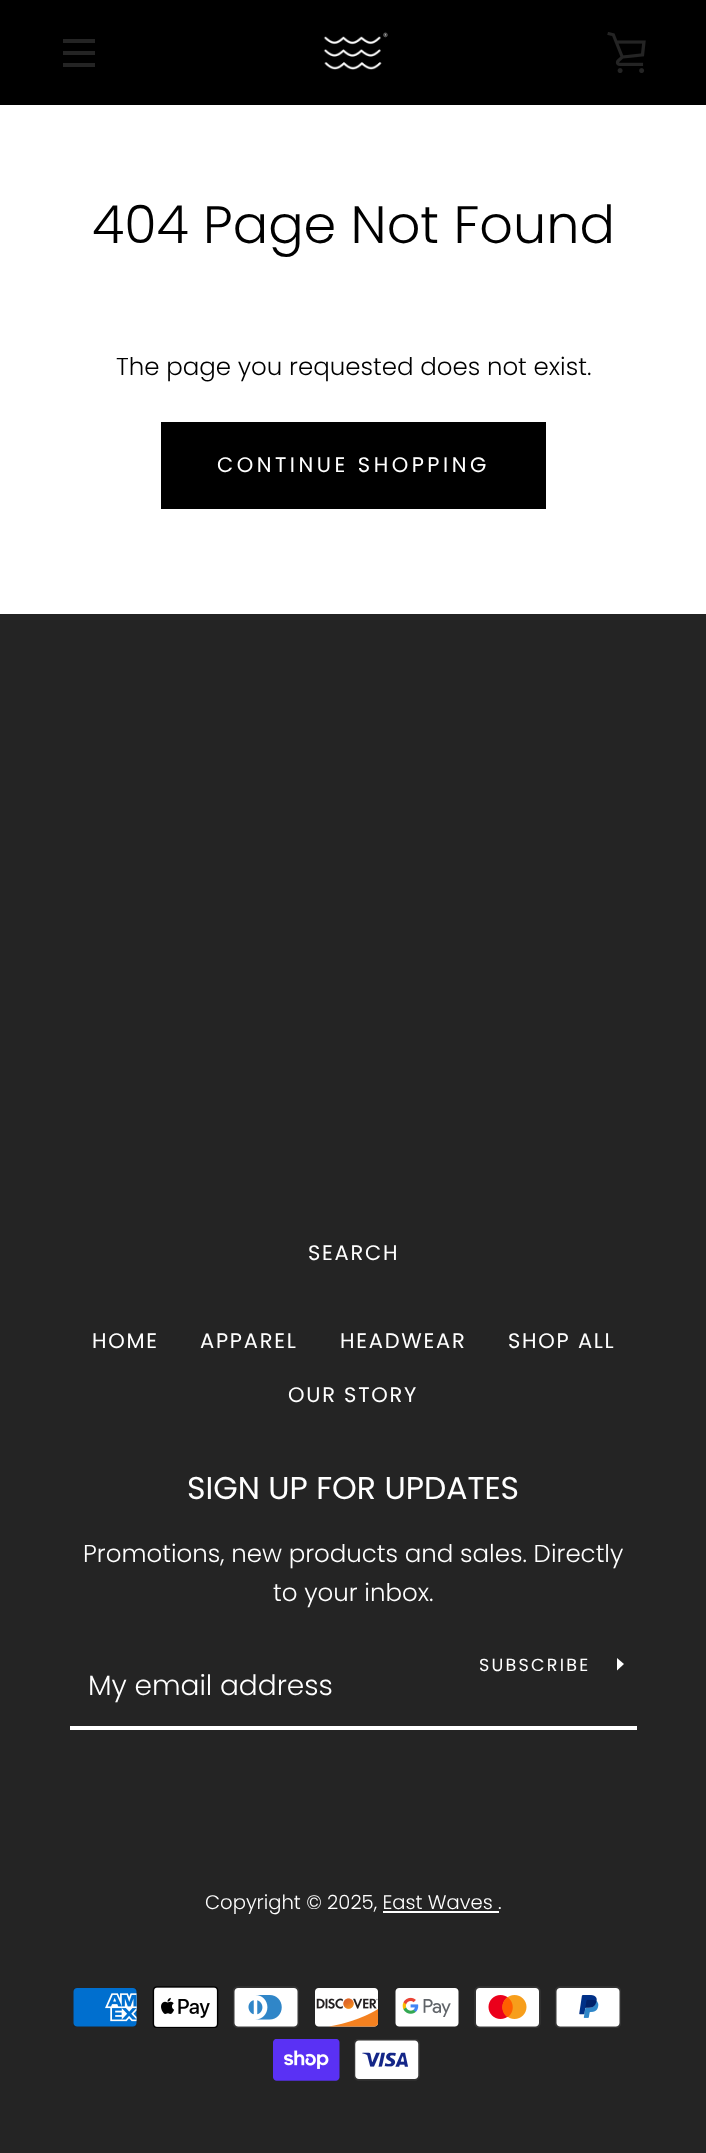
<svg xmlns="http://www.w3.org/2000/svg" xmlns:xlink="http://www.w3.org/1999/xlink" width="706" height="2153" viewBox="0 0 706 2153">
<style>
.cls-1{font:300 52.5px Poppins;fill:#000000}
.cls-2{font:300 24.5px Poppins;fill:#000000}
.cls-3{font:21px Poppins;letter-spacing:3.5px;fill:#ffffff}
.cls-4{font:21px Poppins;letter-spacing:1.75px;fill:#ffffff}
.cls-5{font:31.5px Poppins;fill:#ffffff}
.cls-6{font:300 24.5px Poppins;fill:#ffffff}
.cls-7{font:17.5px Poppins;letter-spacing:2.25px;fill:#ffffff}
.cls-8{font:300 28px Poppins;fill:#ffffff}
.cls-9{font:300 19.6px Poppins;fill:#ffffff}
</style>
<rect width="100%" height="100%" fill="#242424"/>
<rect fill="#ffffff" x="0" y="105" width="706" height="509"/>
<rect fill="#000000" x="0" y="0" width="706" height="105"/>
<rect fill="#242424" x="63" y="39" width="32" height="4"/>
<rect fill="#242424" x="63" y="51" width="32" height="4"/>
<rect fill="#242424" x="63" y="63" width="32" height="4"/>
<image xlink:href="image0.png" x="323" y="32" width="65" height="38"/>
<image xlink:href="image1.png" x="607" y="32" width="39" height="41"/>
<rect fill="#000000" x="161" y="422" width="385" height="87"/>
<rect fill="#ffffff" x="70" y="1726" width="567" height="4"/>
<path fill="#ffffff" d="M624 1664L617 1670.5V1658Z"/>
<rect fill="#ffffff" x="383" y="1911" width="116" height="2"/>
<image xlink:href="image2.png" x="73" y="1988" width="64" height="39"/>
<image xlink:href="image3.png" x="152" y="1986" width="67" height="42"/>
<image xlink:href="image4.png" x="233" y="1986" width="66" height="42"/>
<image xlink:href="image5.png" x="315" y="1988" width="64" height="39"/>
<image xlink:href="image6.png" x="395" y="1988" width="64" height="39"/>
<image xlink:href="image7.png" x="474" y="1986" width="67" height="42"/>
<image xlink:href="image8.png" x="555" y="1986" width="66" height="42"/>
<image xlink:href="image9.png" x="273" y="2039" width="67" height="42"/>
<image xlink:href="image10.png" x="354" y="2039" width="66" height="42"/>
<text class="cls-1" x="92" y="243">404 Page Not Found</text>
<text class="cls-2" x="116" y="375">The page you requested does not exist.</text>
<text class="cls-3" x="217" y="472">CONTINUE SHOPPING</text>
<text class="cls-4" x="308" y="1260">SEARCH</text>
<text class="cls-4" x="92" y="1348">HOME</text>
<text class="cls-4" x="200" y="1348">APPAREL</text>
<text class="cls-4" x="340" y="1348">HEADWEAR</text>
<text class="cls-4" x="508" y="1348">SHOP ALL</text>
<text class="cls-4" x="288" y="1402">OUR STORY</text>
<text class="cls-5" x="187" y="1499">SIGN UP FOR UPDATES</text>
<text class="cls-6" x="83" y="1562">Promotions, new products and sales. Directly</text>
<text class="cls-6" x="273" y="1601">to your inbox.</text>
<text class="cls-7" x="479" y="1671">SUBSCRIBE</text>
<text class="cls-8" x="88" y="1695">My email address</text>
<text class="cls-9" x="205" y="1909">Copyright © 2025, East Waves .</text>
</svg>
